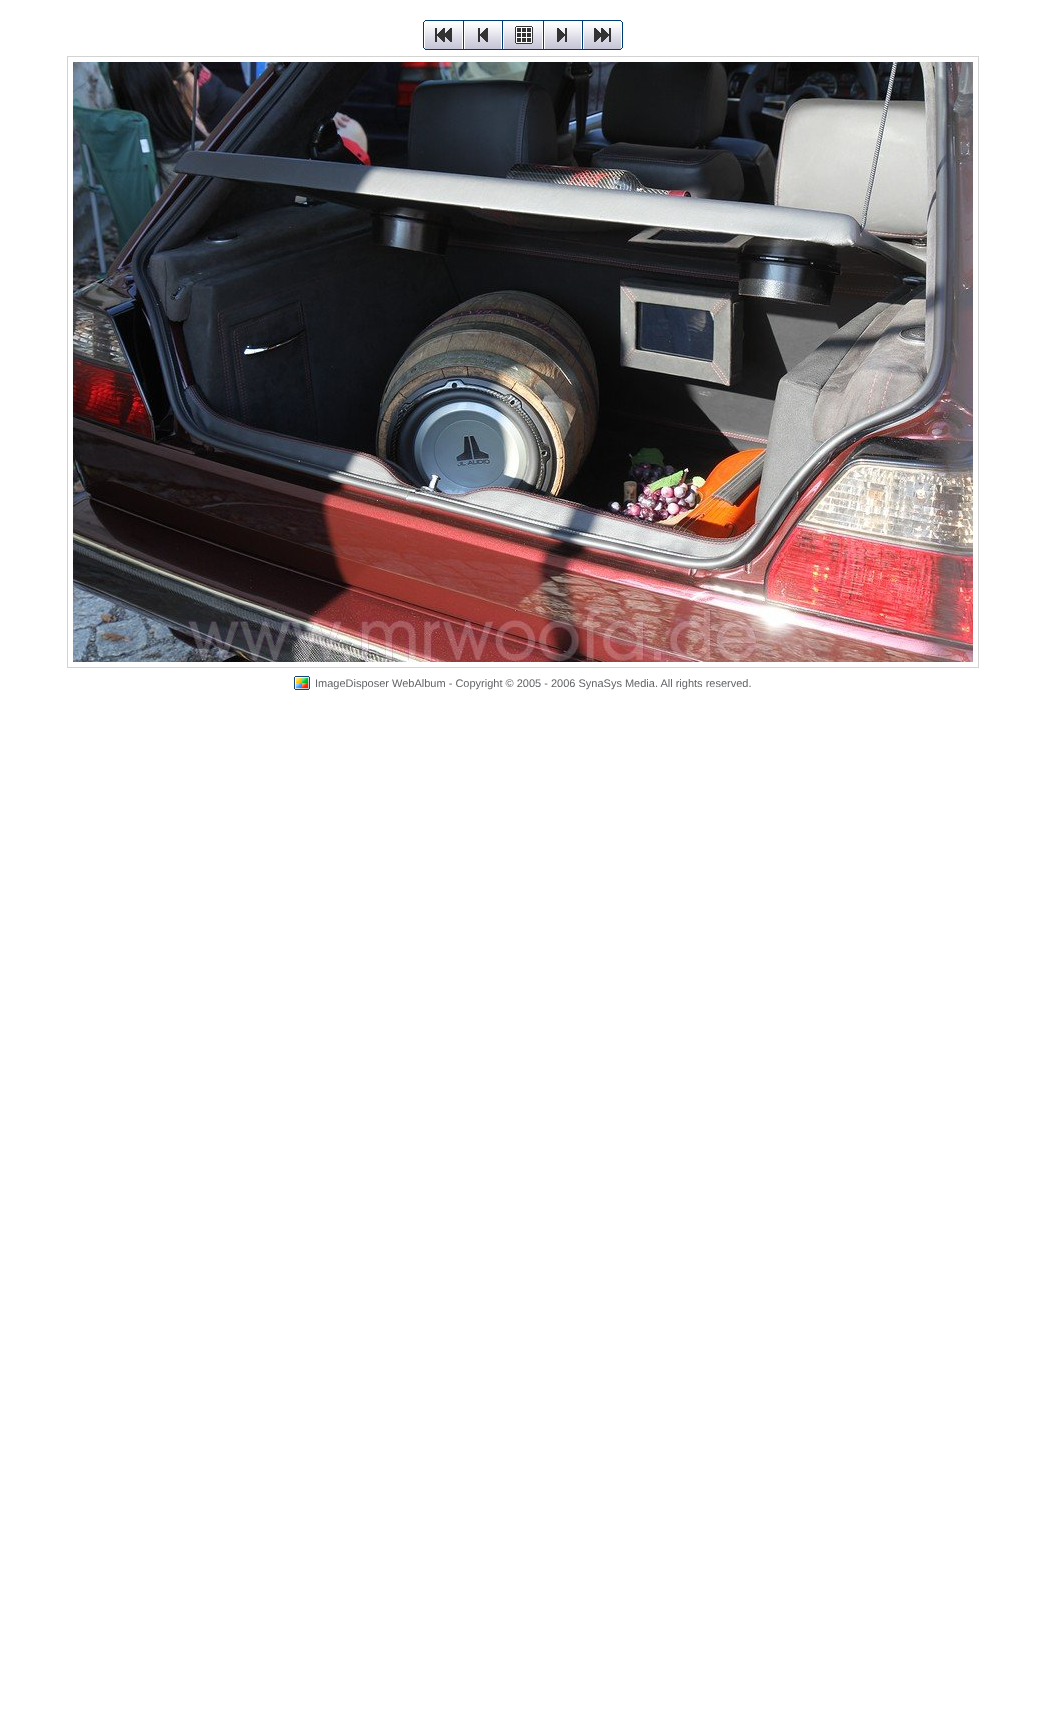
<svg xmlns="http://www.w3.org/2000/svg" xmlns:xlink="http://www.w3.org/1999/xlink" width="1045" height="1716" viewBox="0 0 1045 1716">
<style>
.cls-1{font:11px Liberation Sans;fill:#636467}
</style>
<rect width="100%" height="100%" fill="#ffffff"/>
<image xlink:href="image0.png" x="423" y="20" width="40" height="30"/>
<image xlink:href="image1.png" x="463" y="20" width="40" height="30"/>
<image xlink:href="image2.png" x="503" y="20" width="40" height="30"/>
<image xlink:href="image3.png" x="543" y="20" width="40" height="30"/>
<image xlink:href="image4.png" x="583" y="20" width="40" height="30"/>
<rect fill="none" stroke="#d3d3d3" x="67.5" y="56.5" width="911" height="611"/>
<image xlink:href="image5.png" x="73" y="62" width="900" height="600"/>
<image xlink:href="image6.png" x="294" y="676" width="16" height="14"/>
<text class="cls-1" x="315" y="687">ImageDisposer WebAlbum - Copyright © 2005 - 2006 SynaSys Media. All rights reserved.</text>
</svg>
